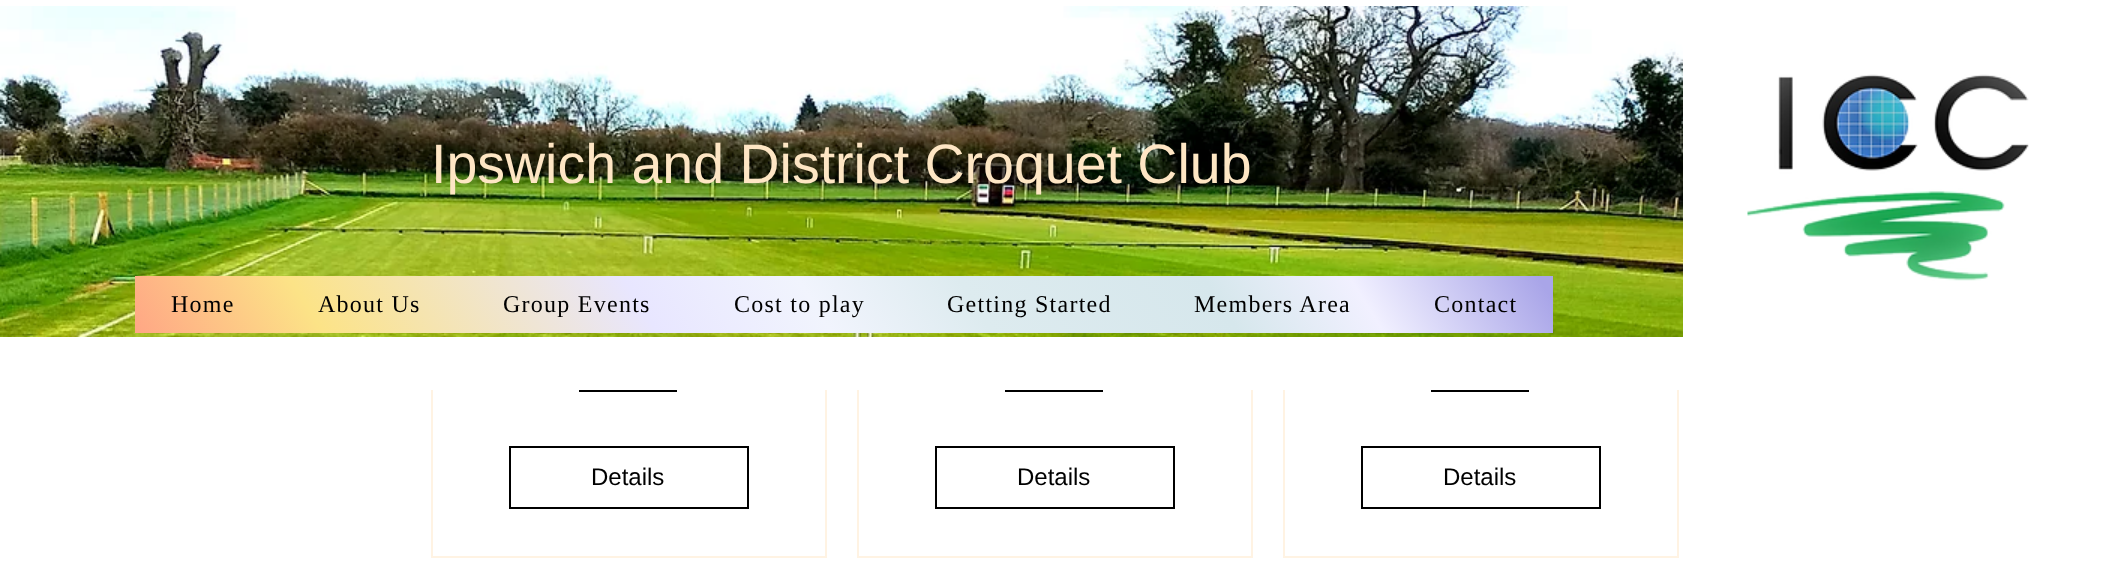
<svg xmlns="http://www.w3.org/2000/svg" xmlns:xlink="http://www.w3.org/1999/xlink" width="2104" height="565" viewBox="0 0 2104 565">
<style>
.cls-1{font:55.5px Liberation Sans;fill:#fee6c4}
.cls-2{font:24px Liberation Serif;letter-spacing:1.25px;fill:#000000}
.cls-3{font:24px Liberation Sans;fill:#000000}
</style>
<defs>
<linearGradient id="g1" gradientUnits="userSpaceOnUse" x1="321" y1="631" x2="1366" y2="-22"><stop offset="0" stop-color="#ffa685"/><stop offset="0.13" stop-color="#fce387"/><stop offset="0.36" stop-color="#e8e6ff"/><stop offset="0.48" stop-color="#f1f4fd"/><stop offset="0.59" stop-color="#ddebef"/><stop offset="0.76" stop-color="#d6e7ec"/><stop offset="0.86" stop-color="#f1f0ff"/><stop offset="0.99" stop-color="#a9a5e8"/></linearGradient>
</defs>
<rect width="100%" height="100%" fill="#ffffff"/>
<rect fill="none" stroke="#fff3e3" stroke-width="2" x="432" y="-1" width="394" height="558"/>
<rect fill="none" stroke="#fff3e3" stroke-width="2" x="858" y="-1" width="394" height="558"/>
<rect fill="none" stroke="#fff3e3" stroke-width="2" x="1284" y="-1" width="394" height="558"/>
<rect fill="#ffffff" x="431" y="0" width="1248" height="390"/>
<image xlink:href="image0.png" x="0" y="6" width="1683" height="331"/>
<rect fill="url(#g1)" x="135" y="276" width="1418" height="57"/>
<image xlink:href="image1.png" x="1747" y="74" width="282" height="207"/>
<rect fill="#000000" x="579" y="390" width="98" height="2"/>
<rect fill="none" stroke="#000000" stroke-width="2" x="510" y="447" width="238" height="61"/>
<rect fill="#000000" x="1005" y="390" width="98" height="2"/>
<rect fill="none" stroke="#000000" stroke-width="2" x="936" y="447" width="238" height="61"/>
<rect fill="#000000" x="1431" y="390" width="98" height="2"/>
<rect fill="none" stroke="#000000" stroke-width="2" x="1362" y="447" width="238" height="61"/>
<text class="cls-1" x="431" y="183">Ipswich and District Croquet Club</text>
<text class="cls-2" x="171" y="312">Home</text>
<text class="cls-2" x="318" y="312">About Us</text>
<text class="cls-2" x="503" y="312">Group Events</text>
<text class="cls-2" x="734" y="312">Cost to play</text>
<text class="cls-2" x="947" y="312">Getting Started</text>
<text class="cls-2" x="1194" y="312">Members Area</text>
<text class="cls-2" x="1434" y="312">Contact</text>
<text class="cls-3" x="591" y="485">Details</text>
<text class="cls-3" x="1017" y="485">Details</text>
<text class="cls-3" x="1443" y="485">Details</text>
</svg>
